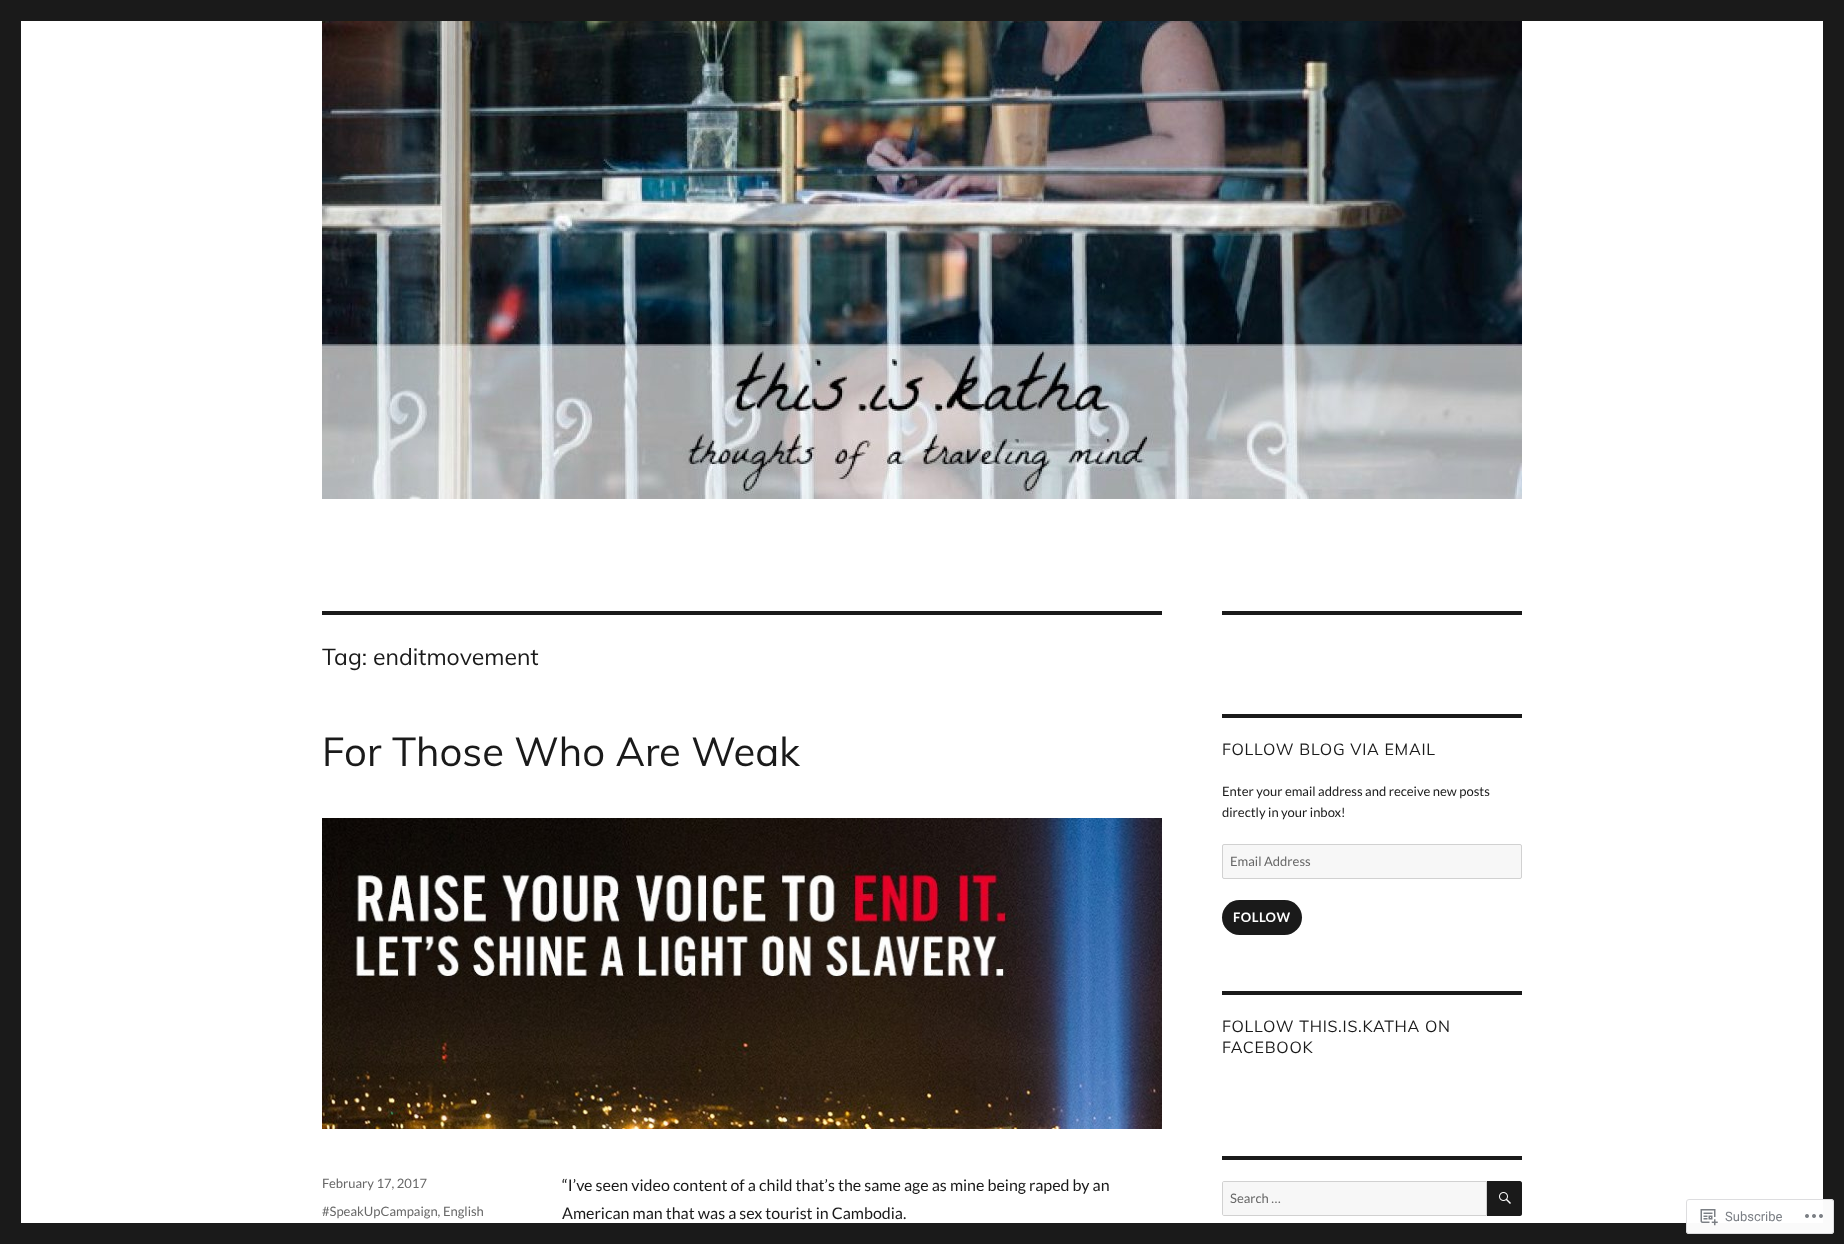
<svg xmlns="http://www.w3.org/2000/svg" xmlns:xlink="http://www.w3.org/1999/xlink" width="1844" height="1244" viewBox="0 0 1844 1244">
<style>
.cls-1{font:23px Muli;fill:#1a1a1a}
.cls-2{font:40px Muli;fill:#1a1a1a}
.cls-3{font:13px Lato;fill:#686868}
.cls-4{font:16px Lato;fill:#1a1a1a}
.cls-5{font:16px Muli;letter-spacing:0.75px;fill:#1a1a1a}
.cls-6{font:13px Lato;fill:#1a1a1a}
.cls-7{font:bold 13px Lato;letter-spacing:0.5px;fill:#ffffff}
.cls-8{font:13px Roboto;fill:#7b7f85}
</style>
<rect width="100%" height="100%" fill="#1a1a1a"/>
<rect fill="#ffffff" x="21" y="21" width="1802" height="1202"/>
<image xlink:href="image0.png" x="322" y="21" width="1200" height="478"/>
<rect fill="#1a1a1a" x="322" y="611" width="840" height="4"/>
<image xlink:href="image1.png" x="322" y="818" width="840" height="311"/>
<rect fill="#1a1a1a" x="1222" y="611" width="300" height="4"/>
<rect fill="#1a1a1a" x="1222" y="714" width="300" height="4"/>
<rect fill="#f7f7f7" stroke="#d1d1d1" x="1222.5" y="844.5" width="299" height="34" rx="1.5"/>
<rect fill="#1a1a1a" x="1222" y="900" width="80" height="35" rx="17.5"/>
<rect fill="#1a1a1a" x="1222" y="991" width="300" height="4"/>
<rect fill="#1a1a1a" x="1222" y="1156" width="300" height="4"/>
<path fill="#f7f7f7" stroke="#d1d1d1" d="M1224 1181.5H1486.5V1215.5H1224C1223 1215.5 1222.5 1215 1222.5 1214V1183C1222.5 1182 1223 1181.5 1224 1181.5Z"/>
<path fill="#1a1a1a" d="M1487 1181H1520C1521 1181 1522 1182 1522 1183V1214C1522 1215 1521 1216 1520 1216H1487Z"/>
<image xlink:href="image2.png" x="1499" y="1192" width="12" height="12"/>
<rect fill="#ffffff" fill-opacity="0.98" x="1686" y="1199" width="148" height="35" rx="3"/>
<rect fill="none" stroke="#dcdcde" stroke-opacity="0.98" x="1686.5" y="1199.5" width="147" height="34" rx="2.5"/>
<image xlink:href="image3.png" x="1700" y="1209" width="18" height="17"/>
<image xlink:href="image4.png" x="1805" y="1214" width="18" height="4"/>
<text class="cls-1" x="322" y="665">Tag: enditmovement</text>
<text class="cls-2" x="322" y="766">For Those Who Are Weak</text>
<text class="cls-3" x="322" y="1188">February 17, 2017</text>
<text class="cls-3" x="322" y="1216">#SpeakUpCampaign, English</text>
<text class="cls-4"><tspan x="562" y="1191">“I’ve seen video content of a child that’s the same age as mine being raped by an</tspan><tspan x="562" y="1219">American man that was a sex tourist in Cambodia.</tspan></text>
<text class="cls-5" x="1222" y="755">FOLLOW BLOG VIA EMAIL</text>
<text class="cls-6"><tspan x="1222" y="796">Enter your email address and receive new posts</tspan><tspan x="1222" y="817">directly in your inbox!</tspan></text>
<text class="cls-3" x="1230" y="866">Email Address</text>
<text class="cls-7" x="1233" y="922">FOLLOW</text>
<text class="cls-5"><tspan x="1222" y="1032">FOLLOW THIS.IS.KATHA ON</tspan><tspan x="1222" y="1053">FACEBOOK</tspan></text>
<text class="cls-3" x="1230" y="1203">Search …</text>
<text class="cls-8" x="1725" y="1221">Subscribe</text>
</svg>
